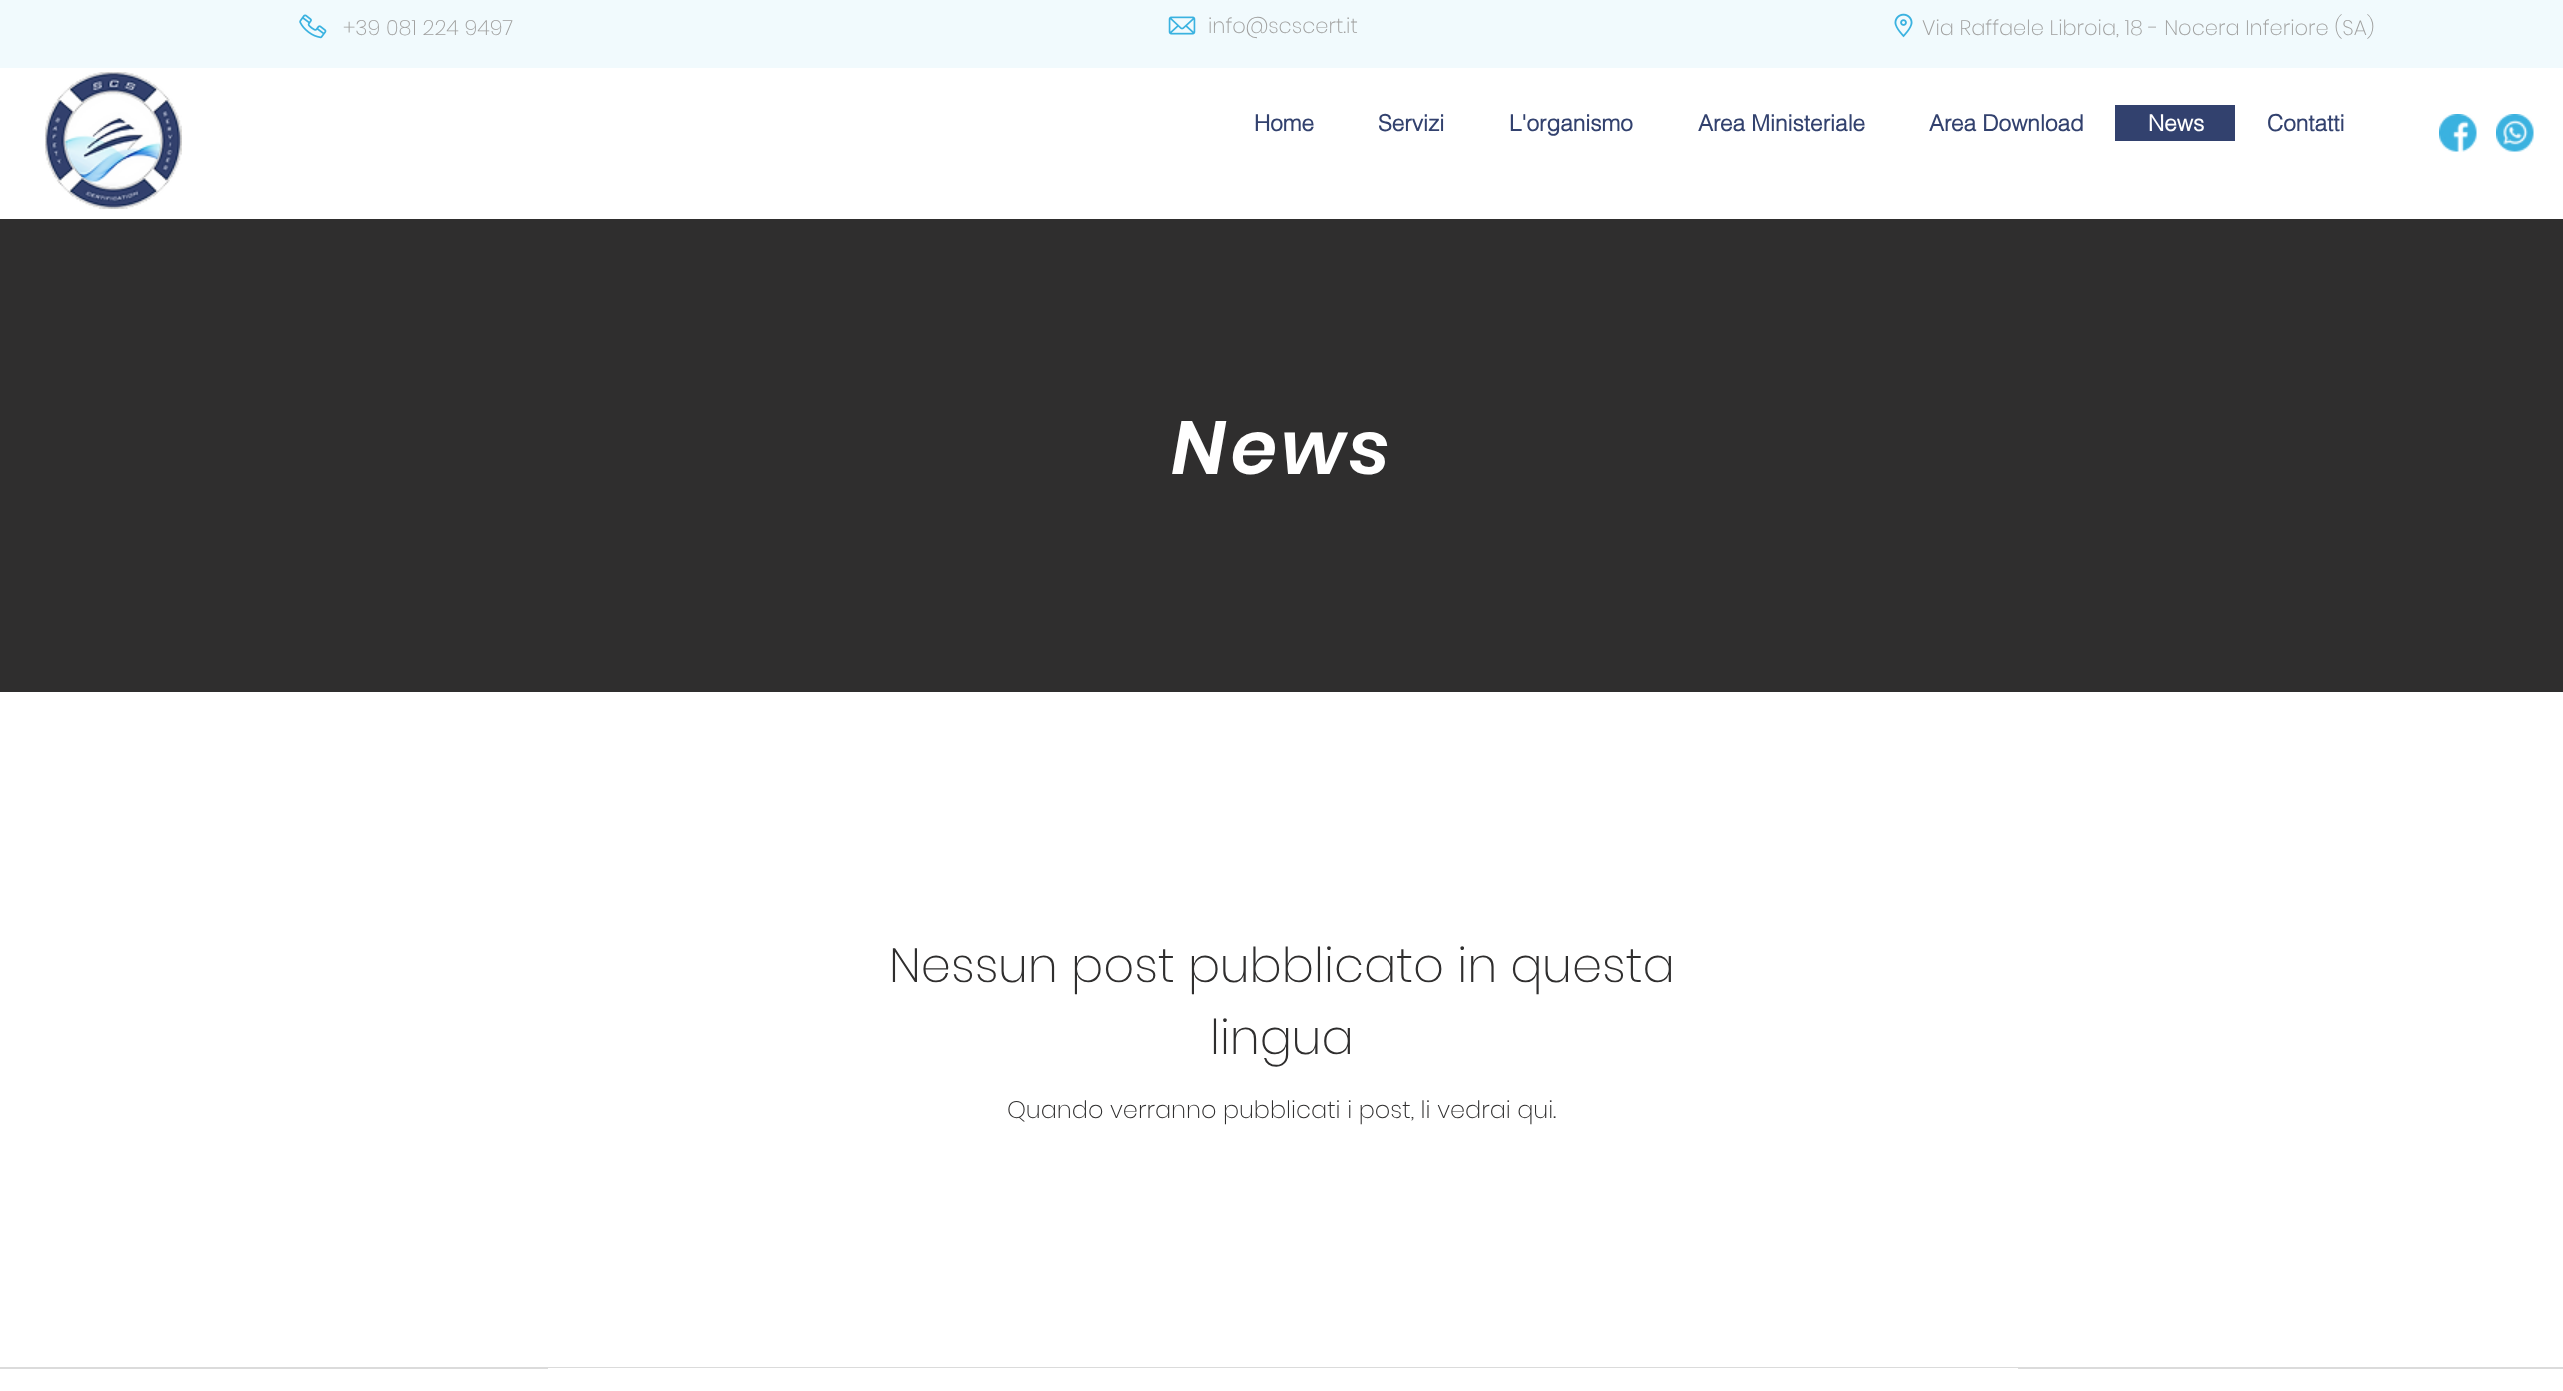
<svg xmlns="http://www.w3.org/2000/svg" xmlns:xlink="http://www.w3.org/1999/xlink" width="2563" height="1391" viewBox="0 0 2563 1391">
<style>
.cls-1{font:200 21px Poppins;fill:#a0a09f}
.cls-2{font:bold 22.5px helvetica;fill:#32416e}
.cls-3{font:bold 22.5px helvetica;fill:#ffffff}
.cls-4{font:italic 600 75px Poppins;letter-spacing:4px;fill:#ffffff}
.cls-5{font:200 48px Poppins;fill:#2f2e2e}
.cls-6{font:200 24px Poppins;fill:#2f2e2e}
</style>
<rect width="100%" height="100%" fill="#ffffff"/>
<rect fill="#f1fafd" x="0" y="0" width="2563" height="68"/>
<image xlink:href="image0.png" x="299" y="14" width="28" height="25"/>
<image xlink:href="image1.png" x="1168" y="16" width="28" height="19"/>
<image xlink:href="image2.png" x="1894" y="13" width="19" height="25"/>
<image xlink:href="image3.png" x="45" y="72" width="137" height="137"/>
<rect fill="#32416e" x="2115" y="105" width="120" height="36"/>
<image xlink:href="image4.png" x="2439" y="114" width="38" height="38"/>
<image xlink:href="image5.png" x="2496" y="114" width="38" height="38"/>
<rect fill="#2f2e2e" x="0" y="219" width="2563" height="473"/>
<rect fill="#dbdbdb" x="0" y="1367" width="2563" height="2"/>
<rect fill="#ffffff" x="548" y="1368" width="1470" height="1"/>
<text class="cls-1" x="343" y="35">+39 081 224 9497</text>
<text class="cls-1" x="1208" y="33">info@scscert.it</text>
<text class="cls-1" x="1922" y="35">Via Raffaele Libroia, 18 - Nocera Inferiore (SA)</text>
<text class="cls-2" x="1254" y="131">Home</text>
<text class="cls-2" x="1378" y="131">Servizi</text>
<text class="cls-2" x="1509" y="131">L'organismo</text>
<text class="cls-2" x="1698" y="131">Area Ministeriale</text>
<text class="cls-2" x="1929" y="131">Area Download</text>
<text class="cls-3" x="2148" y="131">News</text>
<text class="cls-2" x="2267" y="131">Contatti</text>
<text class="cls-4" x="1172" y="474">News</text>
<text class="cls-5" x="889" y="982">Nessun post pubblicato in questa</text>
<text class="cls-5" x="1210" y="1054">lingua</text>
<text class="cls-6" x="1007" y="1118">Quando verranno pubblicati i post, li vedrai qui.</text>
</svg>
